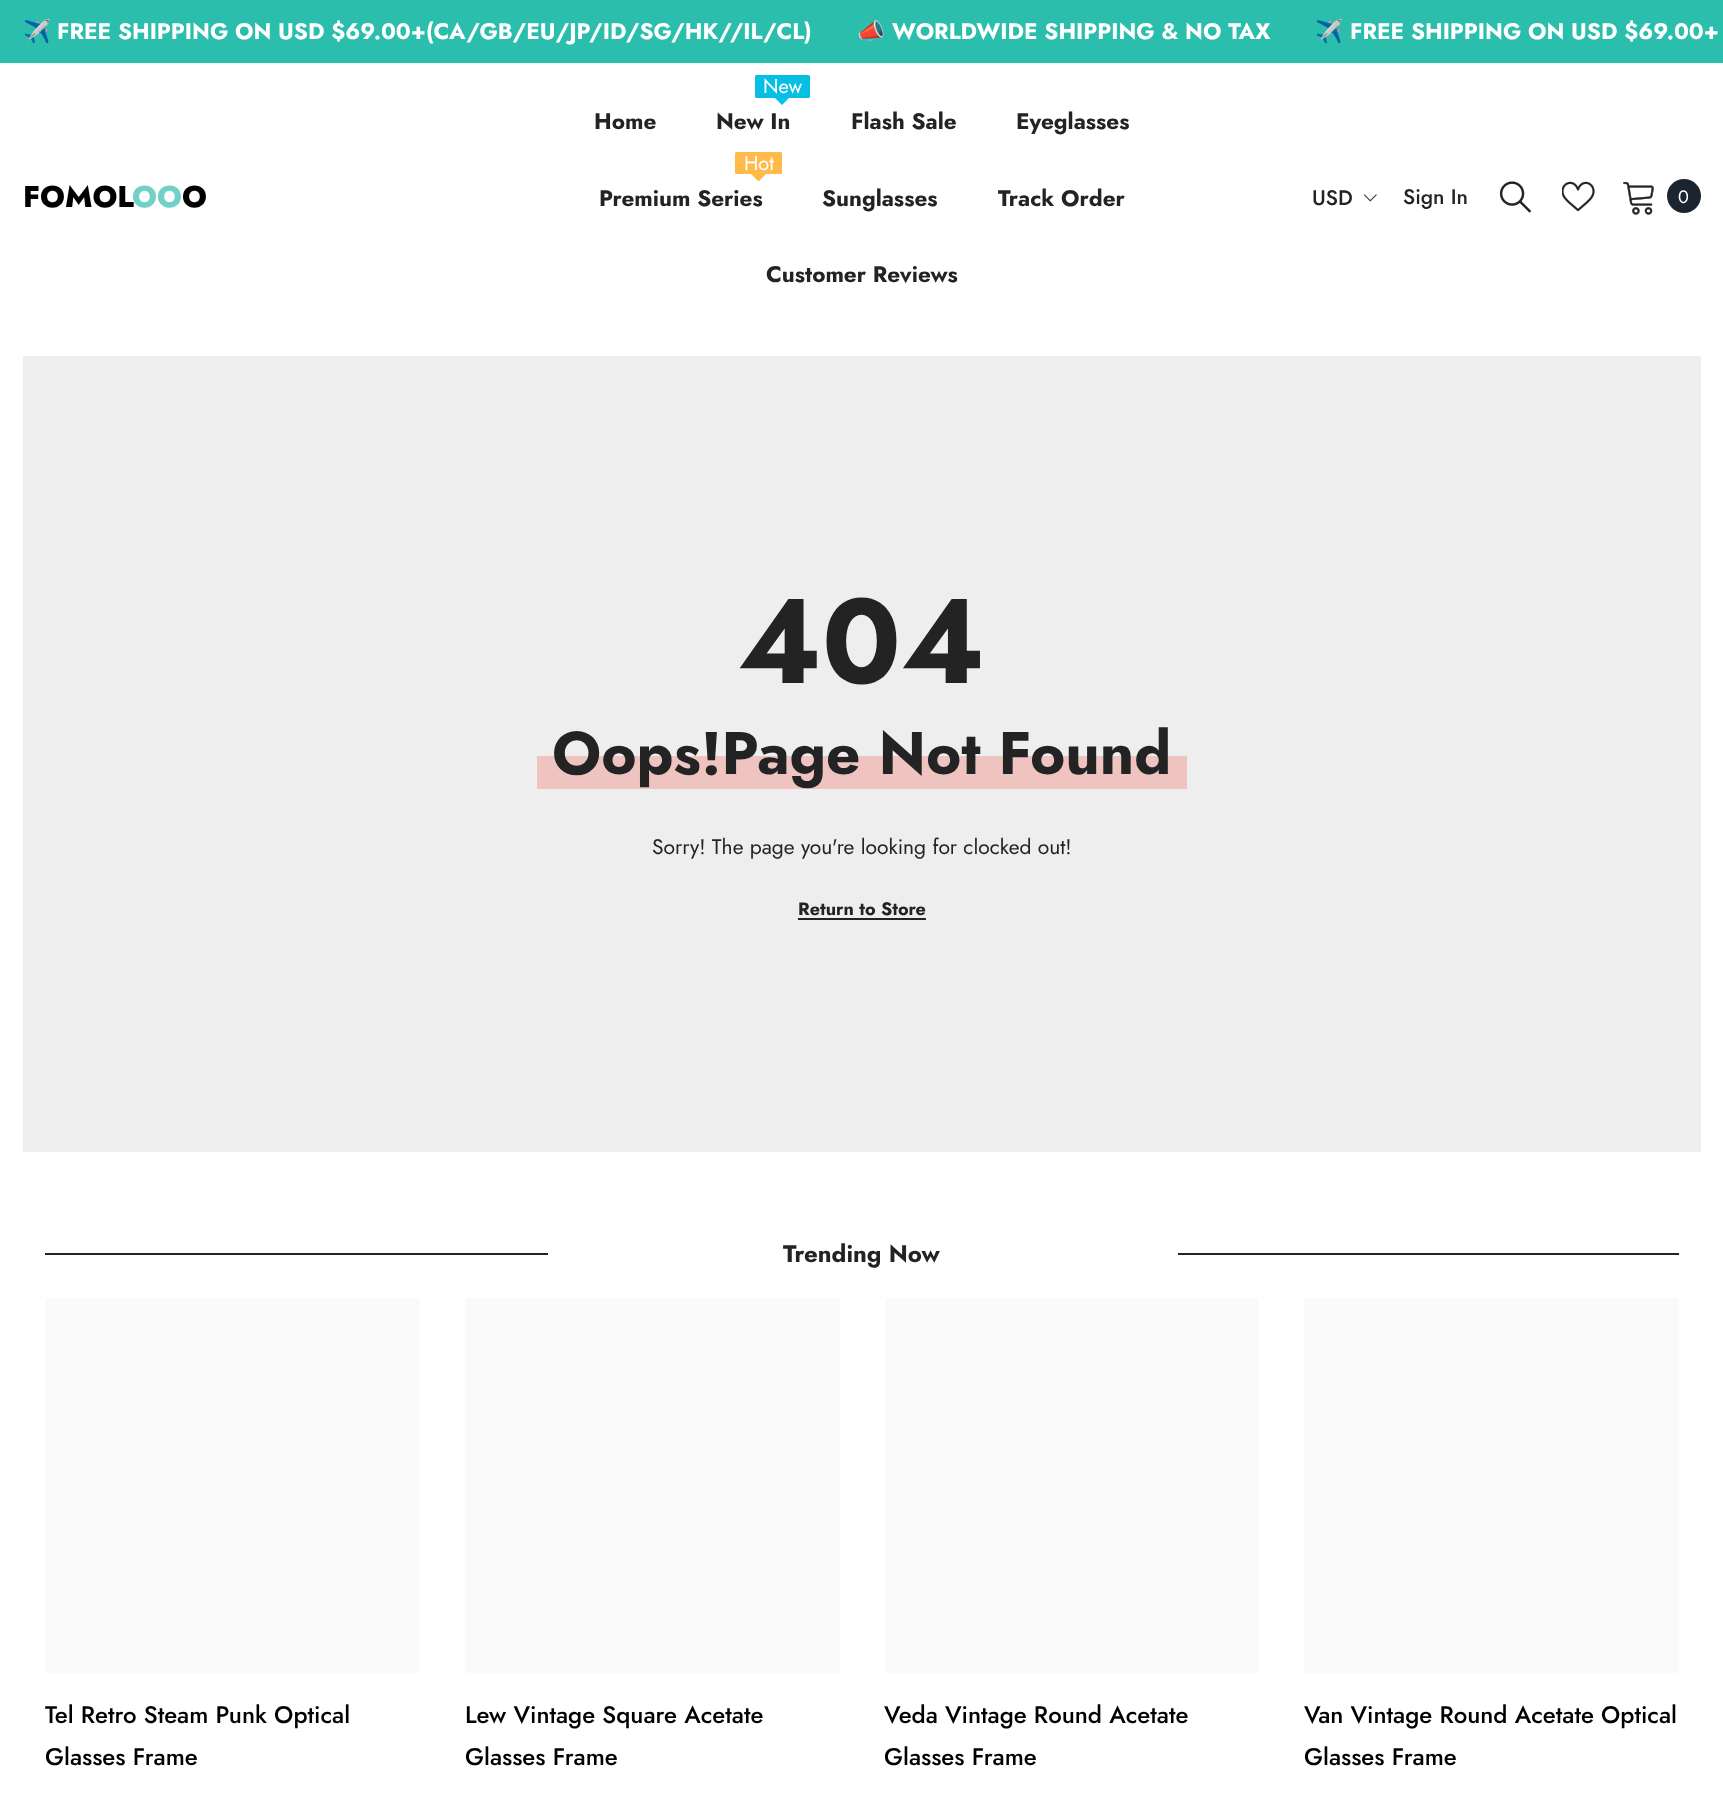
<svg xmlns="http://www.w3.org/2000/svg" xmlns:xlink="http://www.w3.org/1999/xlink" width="1723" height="1793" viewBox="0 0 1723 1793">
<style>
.cls-1{font:bold 22.5px Noto Color Emoji;fill:#ffffff}
.cls-2{font:bold 22.5px Jost;fill:#ffffff}
.cls-3{font:800 30px Jost;fill:#000000}
.cls-4{font:800 30px Jost;fill:#71d1c6}
.cls-5{font:bold 22.5px Jost;fill:#232323}
.cls-6{font:20px Jost;fill:#ffffff}
.cls-7{font:500 21px Jost;fill:#232323}
.cls-8{font:18px Jost;fill:#ffffff}
.cls-9{font:bold 120px Jost;fill:#232323}
.cls-10{font:bold 60px Jost;fill:#232323}
.cls-11{font:21px Jost;fill:#232323}
.cls-12{font:bold 18px Jost;fill:#232323}
.cls-13{font:bold 24px Jost;fill:#232323}
.cls-14{font:500 24px Jost;fill:#000000}
</style>
<rect width="100%" height="100%" fill="#ffffff"/>
<rect fill="#2bbead" x="0" y="0" width="1723" height="63"/>
<rect fill="#06bfe2" x="755" y="75" width="55" height="23" rx="1.5"/>
<path fill="#06bfe2" d="M774.5 97.5H789.5L782 105Z"/>
<rect fill="#ffbb49" x="735" y="152" width="47" height="22" rx="1.5"/>
<path fill="#ffbb49" d="M751 174H766L758.5 181.5Z"/>
<image xlink:href="image0.png" x="1364" y="194" width="13" height="8"/>
<image xlink:href="image1.png" x="1499" y="181" width="33" height="32"/>
<image xlink:href="image2.png" x="1562" y="181" width="33" height="31"/>
<image xlink:href="image3.png" x="1623" y="181" width="31" height="34"/>
<circle fill="#1a2531" cx="1684" cy="196" r="17"/>
<rect fill="#eeeeee" x="23" y="356" width="1678" height="796"/>
<rect fill="#efc3c0" x="537" y="756" width="650" height="33"/>
<rect fill="#232323" x="798" y="918" width="128" height="2"/>
<rect fill="#232323" x="45" y="1253" width="1634" height="2"/>
<rect fill="#ffffff" x="548" y="1253" width="630" height="2"/>
<rect fill="#fafafa" x="45" y="1298" width="375" height="375"/>
<rect fill="#fafafa" x="465" y="1298" width="375" height="375"/>
<rect fill="#fafafa" x="885" y="1298" width="374" height="375"/>
<rect fill="#fafafa" x="1304" y="1298" width="375" height="375"/>
<text class="cls-1" x="23" y="39">✈️</text>
<text class="cls-2" x="57" y="39">FREE SHIPPING ON USD $69.00+(CA/GB/EU/JP/ID/SG/HK//IL/CL)</text>
<text class="cls-1" x="857" y="39">📣</text>
<text class="cls-2" x="892" y="39">WORLDWIDE SHIPPING &amp; NO TAX</text>
<text class="cls-1" x="1315" y="39">✈️</text>
<text class="cls-2" x="1350" y="39">FREE SHIPPING ON USD $69.00+</text>
<text class="cls-3" x="23" y="207">FOMOL</text>
<text class="cls-4" x="132" y="207">OO</text>
<text class="cls-3" x="182" y="207">O</text>
<text class="cls-5" x="594" y="129">Home</text>
<text class="cls-6" x="763" y="93">New</text>
<text class="cls-5" x="716" y="129">New In</text>
<text class="cls-5" x="851" y="129">Flash Sale</text>
<text class="cls-5" x="1016" y="129">Eyeglasses</text>
<text class="cls-6" x="744" y="170">Hot</text>
<text class="cls-5" x="599" y="206">Premium Series</text>
<text class="cls-5" x="822" y="206">Sunglasses</text>
<text class="cls-5" x="998" y="206">Track Order</text>
<text class="cls-5" x="766" y="282">Customer Reviews</text>
<text class="cls-7" x="1312" y="205">USD</text>
<text class="cls-7" x="1403" y="204">Sign In</text>
<text class="cls-8" x="1678" y="203">0</text>
<text class="cls-9" x="738" y="683">404</text>
<text class="cls-10" x="552" y="774">Oops!Page Not Found</text>
<text class="cls-11" x="652" y="854">Sorry! The page you're looking for clocked out!</text>
<text class="cls-12" x="798" y="915">Return to Store</text>
<text class="cls-13" x="783" y="1262">Trending Now</text>
<text class="cls-14"><tspan x="45" y="1723">Tel Retro Steam Punk Optical</tspan><tspan x="45" y="1765">Glasses Frame</tspan></text>
<text class="cls-14"><tspan x="465" y="1723">Lew Vintage Square Acetate</tspan><tspan x="465" y="1765">Glasses Frame</tspan></text>
<text class="cls-14"><tspan x="884" y="1723">Veda Vintage Round Acetate</tspan><tspan x="884" y="1765">Glasses Frame</tspan></text>
<text class="cls-14"><tspan x="1304" y="1723">Van Vintage Round Acetate Optical</tspan><tspan x="1304" y="1765">Glasses Frame</tspan></text>
</svg>
